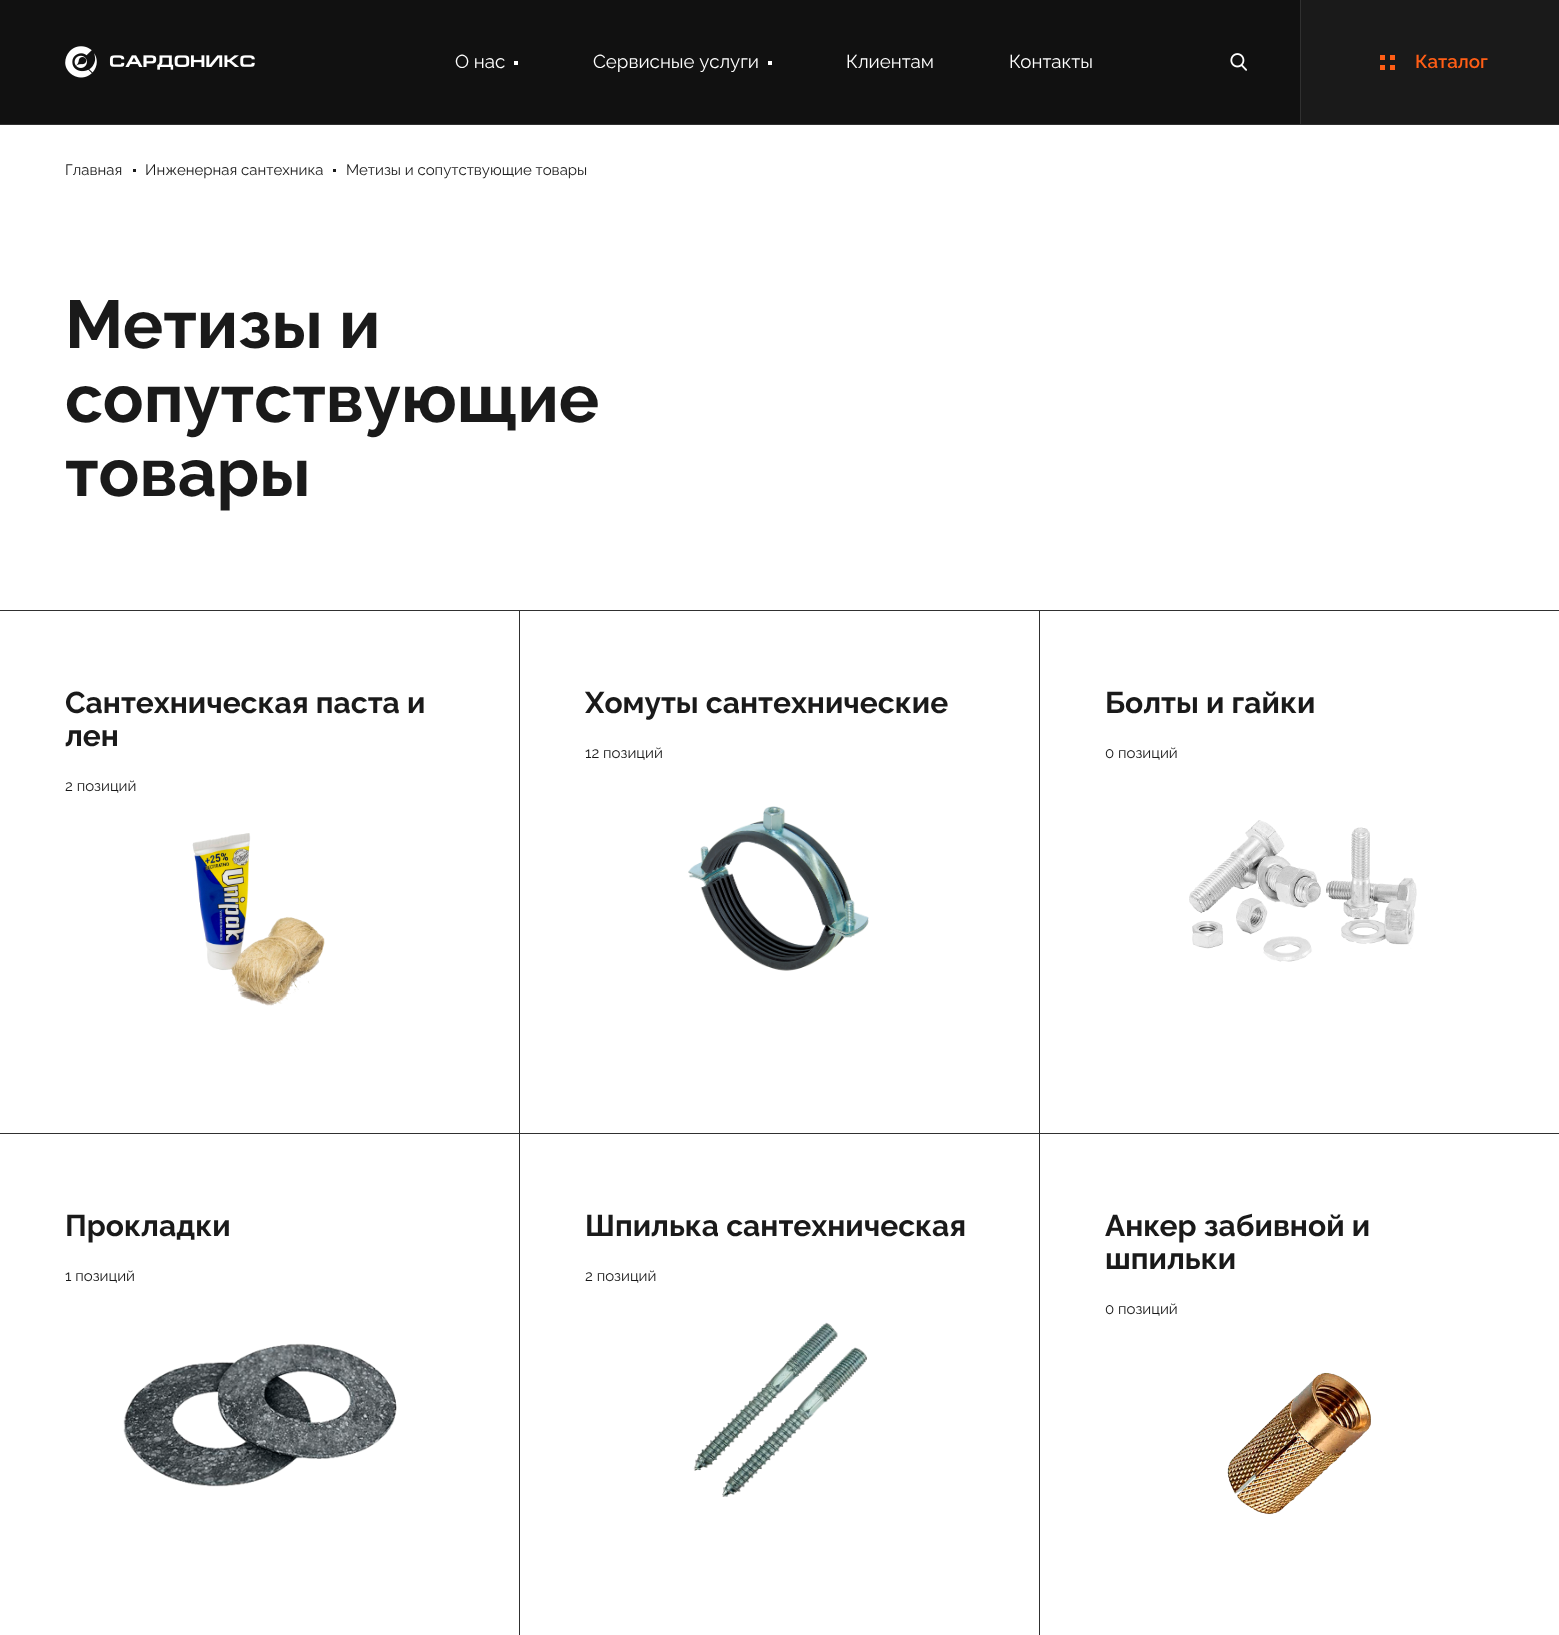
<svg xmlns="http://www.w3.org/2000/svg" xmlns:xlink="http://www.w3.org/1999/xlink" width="1559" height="1635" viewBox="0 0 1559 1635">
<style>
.cls-1{font:18.75px Raleway;fill:#ffffff}
.cls-2{font:600 18.75px Raleway;fill:#ff5e16}
.cls-3{font:15px Raleway;fill:#1a1a1a}
.cls-4{font:bold 67.5px Raleway;fill:#1a1a1a}
.cls-5{font:bold 30px Raleway;fill:#1a1a1a}
</style>
<rect width="100%" height="100%" fill="#ffffff"/>
<rect fill="#111111" x="0" y="0" width="1300" height="124"/>
<rect fill="#ffffff" x="514" y="61" width="4" height="4"/>
<rect fill="#ffffff" x="768" y="61" width="4" height="4"/>
<rect fill="#303030" x="0" y="124" width="1559" height="1"/>
<image xlink:href="image0.png" x="65" y="46" width="190" height="32"/>
<image xlink:href="image1.png" x="1230" y="53" width="17" height="18"/>
<rect fill="#1a1a1a" x="1301" y="0" width="258" height="124"/>
<rect fill="#303030" x="1300" y="0" width="1" height="124"/>
<rect fill="#ff5e16" x="1380" y="65" width="5" height="5"/>
<rect fill="#ff5e16" x="1390" y="65" width="5" height="5"/>
<rect fill="#ff5e16" x="1390" y="55" width="5" height="5"/>
<rect fill="#ff5e16" x="1380" y="55" width="5" height="5"/>
<rect fill="#1a1a1a" x="133" y="169" width="3" height="3"/>
<rect fill="#1a1a1a" x="333" y="169" width="3" height="3"/>
<rect fill="#303030" x="0" y="610" width="1559" height="1"/>
<rect fill="#303030" x="519" y="610" width="1" height="1025"/>
<rect fill="#303030" x="0" y="1133" width="520" height="1"/>
<image xlink:href="image2.png" x="192" y="833" width="133" height="173"/>
<rect fill="#303030" x="1039" y="610" width="1" height="1025"/>
<rect fill="#303030" x="520" y="1133" width="1039" height="1"/>
<image xlink:href="image3.png" x="688" y="806" width="181" height="165"/>
<image xlink:href="image4.png" x="1189" y="820" width="228" height="142"/>
<image xlink:href="image5.png" x="123" y="1343" width="274" height="144"/>
<image xlink:href="image6.png" x="693" y="1322" width="175" height="175"/>
<image xlink:href="image7.png" x="1227" y="1372" width="144" height="143"/>
<text class="cls-1" x="455" y="68">О нас</text>
<text class="cls-1" x="593" y="68">Сервисные услуги</text>
<text class="cls-1" x="846" y="68">Клиентам</text>
<text class="cls-1" x="1009" y="68">Контакты</text>
<text class="cls-2" x="1415" y="68">Каталог</text>
<text class="cls-3" x="65" y="175">Главная</text>
<text class="cls-3" x="145" y="175">Инженерная сантехника</text>
<text class="cls-3" x="346" y="175">Метизы и сопутствующие товары</text>
<text class="cls-4"><tspan x="65" y="348">Метизы и</tspan><tspan x="65" y="422">сопутствующие</tspan><tspan x="65" y="496">товары</tspan></text>
<text class="cls-5"><tspan x="65" y="713">Сантехническая паста и</tspan><tspan x="65" y="746">лен</tspan></text>
<text class="cls-3" x="65" y="791">2 позиций</text>
<text class="cls-5" x="585" y="713">Хомуты сантехнические</text>
<text class="cls-3" x="585" y="758">12 позиций</text>
<text class="cls-5" x="1105" y="713">Болты и гайки</text>
<text class="cls-3" x="1105" y="758">0 позиций</text>
<text class="cls-5" x="65" y="1236">Прокладки</text>
<text class="cls-3" x="65" y="1281">1 позиций</text>
<text class="cls-5" x="585" y="1236">Шпилька сантехническая</text>
<text class="cls-3" x="585" y="1281">2 позиций</text>
<text class="cls-5"><tspan x="1105" y="1236">Анкер забивной и</tspan><tspan x="1105" y="1269">шпильки</tspan></text>
<text class="cls-3" x="1105" y="1314">0 позиций</text>
</svg>
